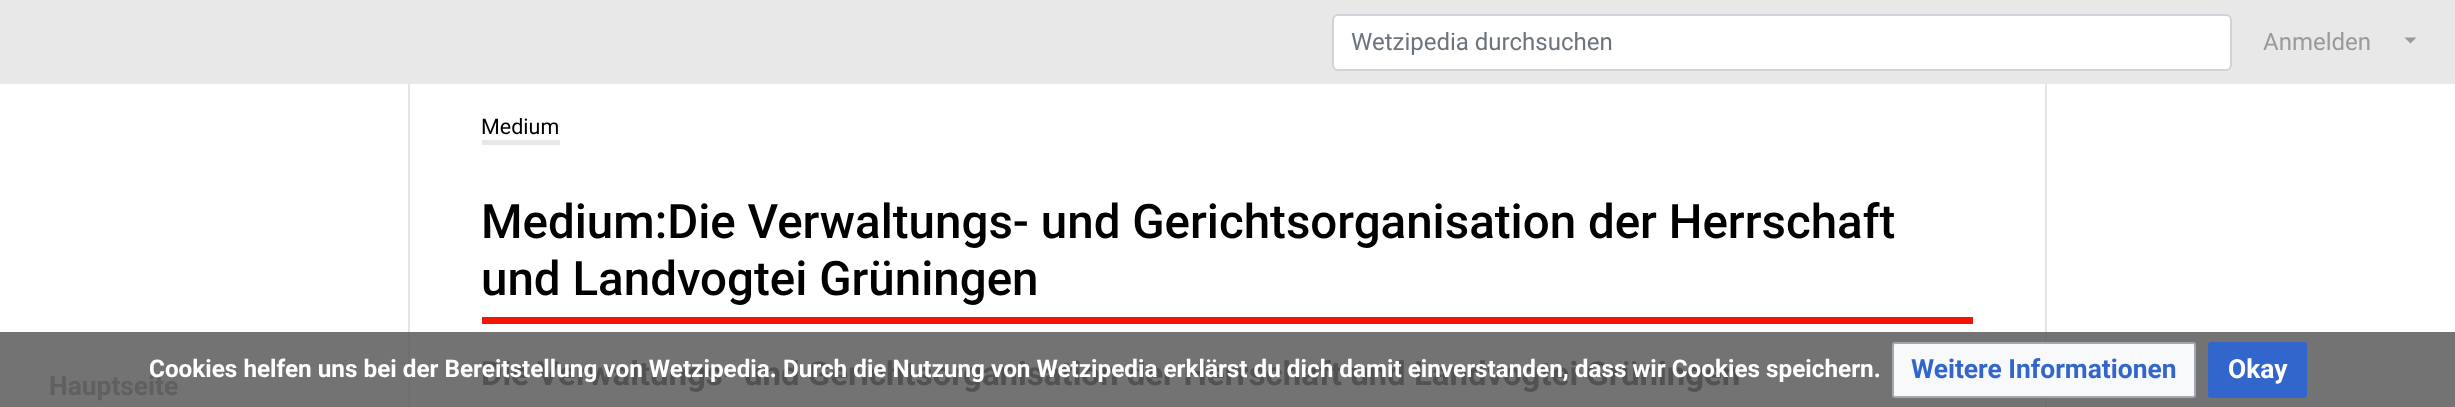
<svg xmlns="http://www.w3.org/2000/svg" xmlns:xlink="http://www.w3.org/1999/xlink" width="2455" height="407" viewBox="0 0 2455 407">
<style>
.cls-1{font:24px Roboto;fill:#6c757d}
.cls-2{font:24px Roboto;fill:#9a9a9a}
.cls-3{font:bold 26.4px Roboto;fill:#606060}
.cls-4{font:21.5px Roboto;fill:#000000}
.cls-5{font:500 47.5px Roboto;fill:#000000}
.cls-6{font:bold 26.4px Roboto;fill:#3366cc}
.cls-7{font:bold 26.4px Roboto;fill:#ffffff}
.cls-8{font:bold 33px Roboto;fill:#515253}
.cls-9{font:bold 24.3px Roboto;fill:#ffffff}
</style>
<rect width="100%" height="100%" fill="#ffffff"/>
<rect fill="#737373" x="0" y="332" width="2455" height="75"/>
<rect fill="#e8e8e8" x="0" y="0" width="2455" height="84"/>
<rect fill="#ffffff" stroke="#ced4da" stroke-width="2" x="1333" y="15" width="898" height="55" rx="5"/>
<path fill="#9a9a9a" d="M2404.5 37.5H2416.5L2410.5 43.5Z"/>
<rect fill="#e5e5e5" x="408" y="84" width="2" height="248"/>
<rect fill="#6f6f6f" x="408" y="332" width="2" height="75"/>
<rect fill="#e5e5e5" x="2045" y="84" width="2" height="248"/>
<rect fill="#6f6f6f" x="2045" y="332" width="2" height="75"/>
<rect fill="#e8e8e8" x="482" y="140" width="78" height="5"/>
<rect fill="#f31505" x="482" y="317" width="1491" height="7"/>
<rect fill="#f8f9fa" stroke="#a2a9b1" stroke-width="2" x="1893" y="343" width="302" height="54" rx="2"/>
<rect fill="#3366cc" stroke="#3366cc" stroke-width="2" x="2209" y="343" width="97" height="54" rx="2"/>
<text class="cls-1" x="1351" y="50">Wetzipedia durchsuchen</text>
<text class="cls-2" x="2263" y="50">Anmelden</text>
<text class="cls-3" x="49" y="395">Hauptseite</text>
<text class="cls-4" x="481" y="134">Medium</text>
<text class="cls-5"><tspan x="481" y="238">Medium:Die Verwaltungs- und Gerichtsorganisation der Herrschaft</tspan><tspan x="481" y="295">und Landvogtei Grüningen</tspan></text>
<text class="cls-6" x="1911" y="378">Weitere Informationen</text>
<text class="cls-7" x="2228" y="378">Okay</text>
<text class="cls-8" x="481" y="385">Die Verwaltungs- und Gerichtsorganisation der Herrschaft und Landvogtei Grüningen</text>
<text class="cls-9" x="149" y="377">Cookies helfen uns bei der Bereitstellung von Wetzipedia. Durch die Nutzung von Wetzipedia erklärst du dich damit einverstanden, dass wir Cookies speichern.</text>
</svg>
